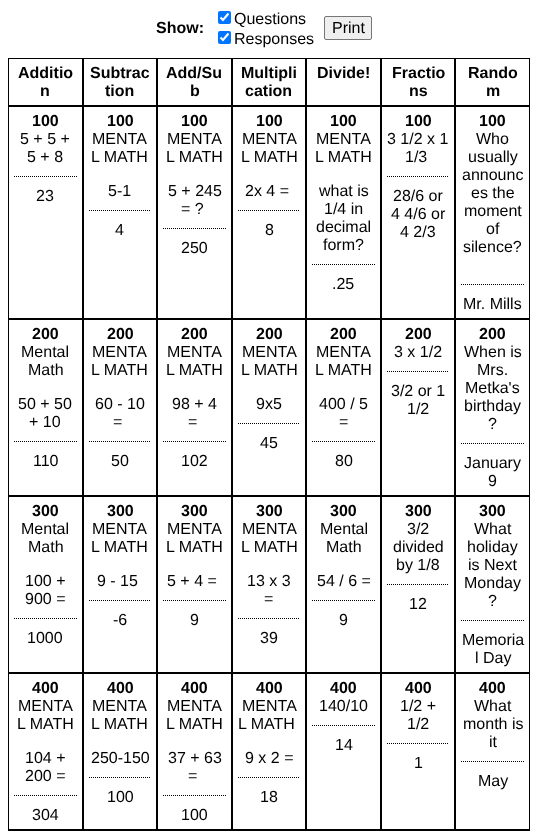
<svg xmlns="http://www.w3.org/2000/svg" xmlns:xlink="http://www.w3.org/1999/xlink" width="538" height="831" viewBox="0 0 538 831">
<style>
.cls-1{font:bold 16px Liberation Sans;fill:#000000}
.cls-2{font:16px Liberation Sans;fill:#000000}
</style>
<rect width="100%" height="100%" fill="#ffffff"/>
<rect fill="#0075ff" x="218" y="11" width="13" height="13" rx="2"/>
<path fill="none" stroke="#ffffff" stroke-width="2.1" d="M220.5 17.5L223 20L228.5 13.5"/>
<rect fill="#0075ff" x="218" y="31" width="13" height="13" rx="2"/>
<path fill="none" stroke="#ffffff" stroke-width="2.1" d="M220.5 37.5L223 40L228.5 33.5"/>
<rect fill="#efefef" stroke="#767676" x="324.5" y="16.5" width="47" height="23" rx="1.5"/>
<rect fill="none" stroke="#000000" x="8.5" y="58.5" width="74" height="47"/>
<rect fill="none" stroke="#000000" x="83.5" y="58.5" width="73" height="47"/>
<rect fill="none" stroke="#000000" x="157.5" y="58.5" width="74" height="47"/>
<rect fill="none" stroke="#000000" x="232.5" y="58.5" width="73" height="47"/>
<rect fill="none" stroke="#000000" x="306.5" y="58.5" width="74" height="47"/>
<rect fill="none" stroke="#000000" x="381.5" y="58.5" width="73" height="47"/>
<rect fill="none" stroke="#000000" x="455.5" y="58.5" width="74" height="47"/>
<rect fill="none" stroke="#000000" x="8.5" y="106.5" width="74" height="212"/>
<path fill="none" stroke="#000000" stroke-dasharray="1 1" d="M14 176.5H77"/>
<rect fill="none" stroke="#000000" x="83.5" y="106.5" width="73" height="212"/>
<path fill="none" stroke="#000000" stroke-dasharray="1 1" d="M89 210.5H151"/>
<rect fill="none" stroke="#000000" x="157.5" y="106.5" width="74" height="212"/>
<path fill="none" stroke="#000000" stroke-dasharray="1 1" d="M163 228.5H226"/>
<rect fill="none" stroke="#000000" x="232.5" y="106.5" width="73" height="212"/>
<path fill="none" stroke="#000000" stroke-dasharray="1 1" d="M238 210.5H300"/>
<rect fill="none" stroke="#000000" x="306.5" y="106.5" width="74" height="212"/>
<path fill="none" stroke="#000000" stroke-dasharray="1 1" d="M312 264.5H375"/>
<rect fill="none" stroke="#000000" x="381.5" y="106.5" width="73" height="212"/>
<path fill="none" stroke="#000000" stroke-dasharray="1 1" d="M387 176.5H449"/>
<rect fill="none" stroke="#000000" x="455.5" y="106.5" width="74" height="212"/>
<path fill="none" stroke="#000000" stroke-dasharray="1 1" d="M461 284.5H524"/>
<rect fill="none" stroke="#000000" x="8.5" y="319.5" width="74" height="176"/>
<path fill="none" stroke="#000000" stroke-dasharray="1 1" d="M14 441.5H77"/>
<rect fill="none" stroke="#000000" x="83.5" y="319.5" width="73" height="176"/>
<path fill="none" stroke="#000000" stroke-dasharray="1 1" d="M89 441.5H151"/>
<rect fill="none" stroke="#000000" x="157.5" y="319.5" width="74" height="176"/>
<path fill="none" stroke="#000000" stroke-dasharray="1 1" d="M163 441.5H226"/>
<rect fill="none" stroke="#000000" x="232.5" y="319.5" width="73" height="176"/>
<path fill="none" stroke="#000000" stroke-dasharray="1 1" d="M238 423.5H300"/>
<rect fill="none" stroke="#000000" x="306.5" y="319.5" width="74" height="176"/>
<path fill="none" stroke="#000000" stroke-dasharray="1 1" d="M312 441.5H375"/>
<rect fill="none" stroke="#000000" x="381.5" y="319.5" width="73" height="176"/>
<path fill="none" stroke="#000000" stroke-dasharray="1 1" d="M387 371.5H449"/>
<rect fill="none" stroke="#000000" x="455.5" y="319.5" width="74" height="176"/>
<path fill="none" stroke="#000000" stroke-dasharray="1 1" d="M461 443.5H524"/>
<rect fill="none" stroke="#000000" x="8.5" y="496.5" width="74" height="176"/>
<path fill="none" stroke="#000000" stroke-dasharray="1 1" d="M14 618.5H77"/>
<rect fill="none" stroke="#000000" x="83.5" y="496.5" width="73" height="176"/>
<path fill="none" stroke="#000000" stroke-dasharray="1 1" d="M89 600.5H151"/>
<rect fill="none" stroke="#000000" x="157.5" y="496.5" width="74" height="176"/>
<path fill="none" stroke="#000000" stroke-dasharray="1 1" d="M163 600.5H226"/>
<rect fill="none" stroke="#000000" x="232.5" y="496.5" width="73" height="176"/>
<path fill="none" stroke="#000000" stroke-dasharray="1 1" d="M238 618.5H300"/>
<rect fill="none" stroke="#000000" x="306.5" y="496.5" width="74" height="176"/>
<path fill="none" stroke="#000000" stroke-dasharray="1 1" d="M312 600.5H375"/>
<rect fill="none" stroke="#000000" x="381.5" y="496.5" width="73" height="176"/>
<path fill="none" stroke="#000000" stroke-dasharray="1 1" d="M387 584.5H449"/>
<rect fill="none" stroke="#000000" x="455.5" y="496.5" width="74" height="176"/>
<path fill="none" stroke="#000000" stroke-dasharray="1 1" d="M461 620.5H524"/>
<rect fill="none" stroke="#000000" x="8.5" y="673.5" width="74" height="156"/>
<path fill="none" stroke="#000000" stroke-dasharray="1 1" d="M14 795.5H77"/>
<rect fill="none" stroke="#000000" x="83.5" y="673.5" width="73" height="156"/>
<path fill="none" stroke="#000000" stroke-dasharray="1 1" d="M89 777.5H151"/>
<rect fill="none" stroke="#000000" x="157.5" y="673.5" width="74" height="156"/>
<path fill="none" stroke="#000000" stroke-dasharray="1 1" d="M163 795.5H226"/>
<rect fill="none" stroke="#000000" x="232.5" y="673.5" width="73" height="156"/>
<path fill="none" stroke="#000000" stroke-dasharray="1 1" d="M238 777.5H300"/>
<rect fill="none" stroke="#000000" x="306.5" y="673.5" width="74" height="156"/>
<path fill="none" stroke="#000000" stroke-dasharray="1 1" d="M312 725.5H375"/>
<rect fill="none" stroke="#000000" x="381.5" y="673.5" width="73" height="156"/>
<path fill="none" stroke="#000000" stroke-dasharray="1 1" d="M387 743.5H449"/>
<rect fill="none" stroke="#000000" x="455.5" y="673.5" width="74" height="156"/>
<path fill="none" stroke="#000000" stroke-dasharray="1 1" d="M461 761.5H524"/>
<rect fill="none" stroke="#000000" x="8.5" y="830.5" width="74" height="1"/>
<rect fill="none" stroke="#000000" x="83.5" y="830.5" width="73" height="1"/>
<rect fill="none" stroke="#000000" x="157.5" y="830.5" width="74" height="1"/>
<rect fill="none" stroke="#000000" x="232.5" y="830.5" width="73" height="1"/>
<rect fill="none" stroke="#000000" x="306.5" y="830.5" width="74" height="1"/>
<rect fill="none" stroke="#000000" x="381.5" y="830.5" width="73" height="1"/>
<rect fill="none" stroke="#000000" x="455.5" y="830.5" width="74" height="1"/>
<text class="cls-1" x="156" y="33">Show:</text>
<text class="cls-2"><tspan x="234" y="24">Questions</tspan><tspan x="234" y="44">Responses</tspan></text>
<text class="cls-2" x="332" y="33">Print</text>
<text class="cls-1" x="18" y="78">Additio</text>
<text class="cls-1" x="40" y="96">n</text>
<text class="cls-1" x="90" y="78">Subtrac</text>
<text class="cls-1" x="105" y="96">tion</text>
<text class="cls-1" x="166" y="78">Add/Su</text>
<text class="cls-1" x="190" y="96">b</text>
<text class="cls-1" x="241" y="78">Multipli</text>
<text class="cls-1" x="245" y="96">cation</text>
<text class="cls-1" x="317" y="78">Divide!</text>
<text class="cls-1" x="392" y="78">Fractio</text>
<text class="cls-1" x="409" y="96">ns</text>
<text class="cls-1" x="468" y="78">Rando</text>
<text class="cls-1" x="486" y="96">m</text>
<text class="cls-1" x="32" y="126">100</text>
<text class="cls-2" x="20" y="144">5 + 5 +</text>
<text class="cls-2" x="27" y="162">5 + 8</text>
<text class="cls-2" x="36" y="201">23</text>
<text class="cls-1" x="107" y="126">100</text>
<text class="cls-2" x="92" y="144">MENTA</text>
<text class="cls-2" x="91" y="162">L MATH</text>
<text class="cls-2" x="108" y="196">5-1</text>
<text class="cls-2" x="115" y="235">4</text>
<text class="cls-1" x="181" y="126">100</text>
<text class="cls-2" x="167" y="144">MENTA</text>
<text class="cls-2" x="166" y="162">L MATH</text>
<text class="cls-2" x="168" y="196">5 + 245</text>
<text class="cls-2" x="181" y="214">= ?</text>
<text class="cls-2" x="181" y="253">250</text>
<text class="cls-1" x="256" y="126">100</text>
<text class="cls-2" x="242" y="144">MENTA</text>
<text class="cls-2" x="241" y="162">L MATH</text>
<text class="cls-2" x="245" y="196">2x 4 =</text>
<text class="cls-2" x="265" y="235">8</text>
<text class="cls-1" x="330" y="126">100</text>
<text class="cls-2" x="316" y="144">MENTA</text>
<text class="cls-2" x="315" y="162">L MATH</text>
<text class="cls-2" x="319" y="196">what is</text>
<text class="cls-2" x="324" y="214">1/4 in</text>
<text class="cls-2" x="316" y="232">decimal</text>
<text class="cls-2" x="323" y="250">form?</text>
<text class="cls-2" x="332" y="289">.25</text>
<text class="cls-1" x="405" y="126">100</text>
<text class="cls-2" x="387" y="144">3 1/2 x 1</text>
<text class="cls-2" x="405" y="162">1/3</text>
<text class="cls-2" x="393" y="201">28/6 or</text>
<text class="cls-2" x="391" y="219">4 4/6 or</text>
<text class="cls-2" x="400" y="237">4 2/3</text>
<text class="cls-1" x="479" y="126">100</text>
<text class="cls-2" x="476" y="144">Who</text>
<text class="cls-2" x="468" y="162">usually</text>
<text class="cls-2" x="462" y="180">announc</text>
<text class="cls-2" x="471" y="198">es the</text>
<text class="cls-2" x="464" y="216">moment</text>
<text class="cls-2" x="486" y="234">of</text>
<text class="cls-2" x="463" y="252">silence?</text>
<text class="cls-2" x="463" y="309">Mr. Mills</text>
<text class="cls-1" x="32" y="339">200</text>
<text class="cls-2" x="21" y="357">Mental</text>
<text class="cls-2" x="28" y="375">Math</text>
<text class="cls-2" x="18" y="409">50 + 50</text>
<text class="cls-2" x="29" y="427">+ 10</text>
<text class="cls-2" x="33" y="466">110</text>
<text class="cls-1" x="107" y="339">200</text>
<text class="cls-2" x="92" y="357">MENTA</text>
<text class="cls-2" x="91" y="375">L MATH</text>
<text class="cls-2" x="95" y="409">60 - 10</text>
<text class="cls-2" x="113" y="427">=</text>
<text class="cls-2" x="111" y="466">50</text>
<text class="cls-1" x="181" y="339">200</text>
<text class="cls-2" x="167" y="357">MENTA</text>
<text class="cls-2" x="166" y="375">L MATH</text>
<text class="cls-2" x="172" y="409">98 + 4</text>
<text class="cls-2" x="188" y="427">=</text>
<text class="cls-2" x="181" y="466">102</text>
<text class="cls-1" x="256" y="339">200</text>
<text class="cls-2" x="242" y="357">MENTA</text>
<text class="cls-2" x="241" y="375">L MATH</text>
<text class="cls-2" x="256" y="409">9x5</text>
<text class="cls-2" x="260" y="448">45</text>
<text class="cls-1" x="330" y="339">200</text>
<text class="cls-2" x="316" y="357">MENTA</text>
<text class="cls-2" x="315" y="375">L MATH</text>
<text class="cls-2" x="319" y="409">400 / 5</text>
<text class="cls-2" x="339" y="427">=</text>
<text class="cls-2" x="335" y="466">80</text>
<text class="cls-1" x="405" y="339">200</text>
<text class="cls-2" x="394" y="357">3 x 1/2</text>
<text class="cls-2" x="391" y="396">3/2 or 1</text>
<text class="cls-2" x="407" y="414">1/2</text>
<text class="cls-1" x="479" y="339">200</text>
<text class="cls-2" x="464" y="357">When is</text>
<text class="cls-2" x="477" y="375">Mrs.</text>
<text class="cls-2" x="465" y="393">Metka's</text>
<text class="cls-2" x="464" y="411">birthday</text>
<text class="cls-2" x="488" y="429">?</text>
<text class="cls-2" x="464" y="468">January</text>
<text class="cls-2" x="488" y="486">9</text>
<text class="cls-1" x="32" y="516">300</text>
<text class="cls-2" x="21" y="534">Mental</text>
<text class="cls-2" x="28" y="552">Math</text>
<text class="cls-2"><tspan x="25" y="586">100 +</tspan><tspan x="25" y="604">900 =</tspan></text>
<text class="cls-2" x="27" y="643">1000</text>
<text class="cls-1" x="107" y="516">300</text>
<text class="cls-2" x="92" y="534">MENTA</text>
<text class="cls-2" x="91" y="552">L MATH</text>
<text class="cls-2" x="97" y="586">9 - 15</text>
<text class="cls-2" x="113" y="625">-6</text>
<text class="cls-1" x="181" y="516">300</text>
<text class="cls-2" x="167" y="534">MENTA</text>
<text class="cls-2" x="166" y="552">L MATH</text>
<text class="cls-2" x="167" y="586">5 + 4 =</text>
<text class="cls-2" x="190" y="625">9</text>
<text class="cls-1" x="256" y="516">300</text>
<text class="cls-2" x="242" y="534">MENTA</text>
<text class="cls-2" x="241" y="552">L MATH</text>
<text class="cls-2" x="247" y="586">13 x 3</text>
<text class="cls-2" x="264" y="604">=</text>
<text class="cls-2" x="260" y="643">39</text>
<text class="cls-1" x="330" y="516">300</text>
<text class="cls-2" x="320" y="534">Mental</text>
<text class="cls-2" x="326" y="552">Math</text>
<text class="cls-2" x="317" y="586">54 / 6 =</text>
<text class="cls-2" x="339" y="625">9</text>
<text class="cls-1" x="405" y="516">300</text>
<text class="cls-2" x="407" y="534">3/2</text>
<text class="cls-2" x="393" y="552">divided</text>
<text class="cls-2" x="396" y="570">by 1/8</text>
<text class="cls-2" x="409" y="609">12</text>
<text class="cls-1" x="479" y="516">300</text>
<text class="cls-2" x="474" y="534">What</text>
<text class="cls-2" x="467" y="552">holiday</text>
<text class="cls-2" x="468" y="570">is Next</text>
<text class="cls-2" x="464" y="588">Monday</text>
<text class="cls-2" x="488" y="606">?</text>
<text class="cls-2" x="462" y="645">Memoria</text>
<text class="cls-2" x="475" y="663">l Day</text>
<text class="cls-1" x="32" y="693">400</text>
<text class="cls-2" x="18" y="711">MENTA</text>
<text class="cls-2" x="17" y="729">L MATH</text>
<text class="cls-2"><tspan x="25" y="763">104 +</tspan><tspan x="25" y="781">200 =</tspan></text>
<text class="cls-2" x="32" y="820">304</text>
<text class="cls-1" x="107" y="693">400</text>
<text class="cls-2" x="92" y="711">MENTA</text>
<text class="cls-2" x="91" y="729">L MATH</text>
<text class="cls-2" x="91" y="763">250-150</text>
<text class="cls-2" x="107" y="802">100</text>
<text class="cls-1" x="181" y="693">400</text>
<text class="cls-2" x="167" y="711">MENTA</text>
<text class="cls-2" x="166" y="729">L MATH</text>
<text class="cls-2" x="168" y="763">37 + 63</text>
<text class="cls-2" x="188" y="781">=</text>
<text class="cls-2" x="181" y="820">100</text>
<text class="cls-1" x="256" y="693">400</text>
<text class="cls-2" x="242" y="711">MENTA</text>
<text class="cls-2" x="238" y="729">L MATH</text>
<text class="cls-2" x="245" y="763">9 x 2 =</text>
<text class="cls-2" x="260" y="802">18</text>
<text class="cls-1" x="330" y="693">400</text>
<text class="cls-2" x="319" y="711">140/10</text>
<text class="cls-2" x="335" y="750">14</text>
<text class="cls-1" x="405" y="693">400</text>
<text class="cls-2" x="400" y="711">1/2 +</text>
<text class="cls-2" x="407" y="729">1/2</text>
<text class="cls-2" x="414" y="768">1</text>
<text class="cls-1" x="479" y="693">400</text>
<text class="cls-2" x="474" y="711">What</text>
<text class="cls-2" x="463" y="729">month is</text>
<text class="cls-2" x="489" y="747">it</text>
<text class="cls-2" x="478" y="786">May</text>
</svg>
